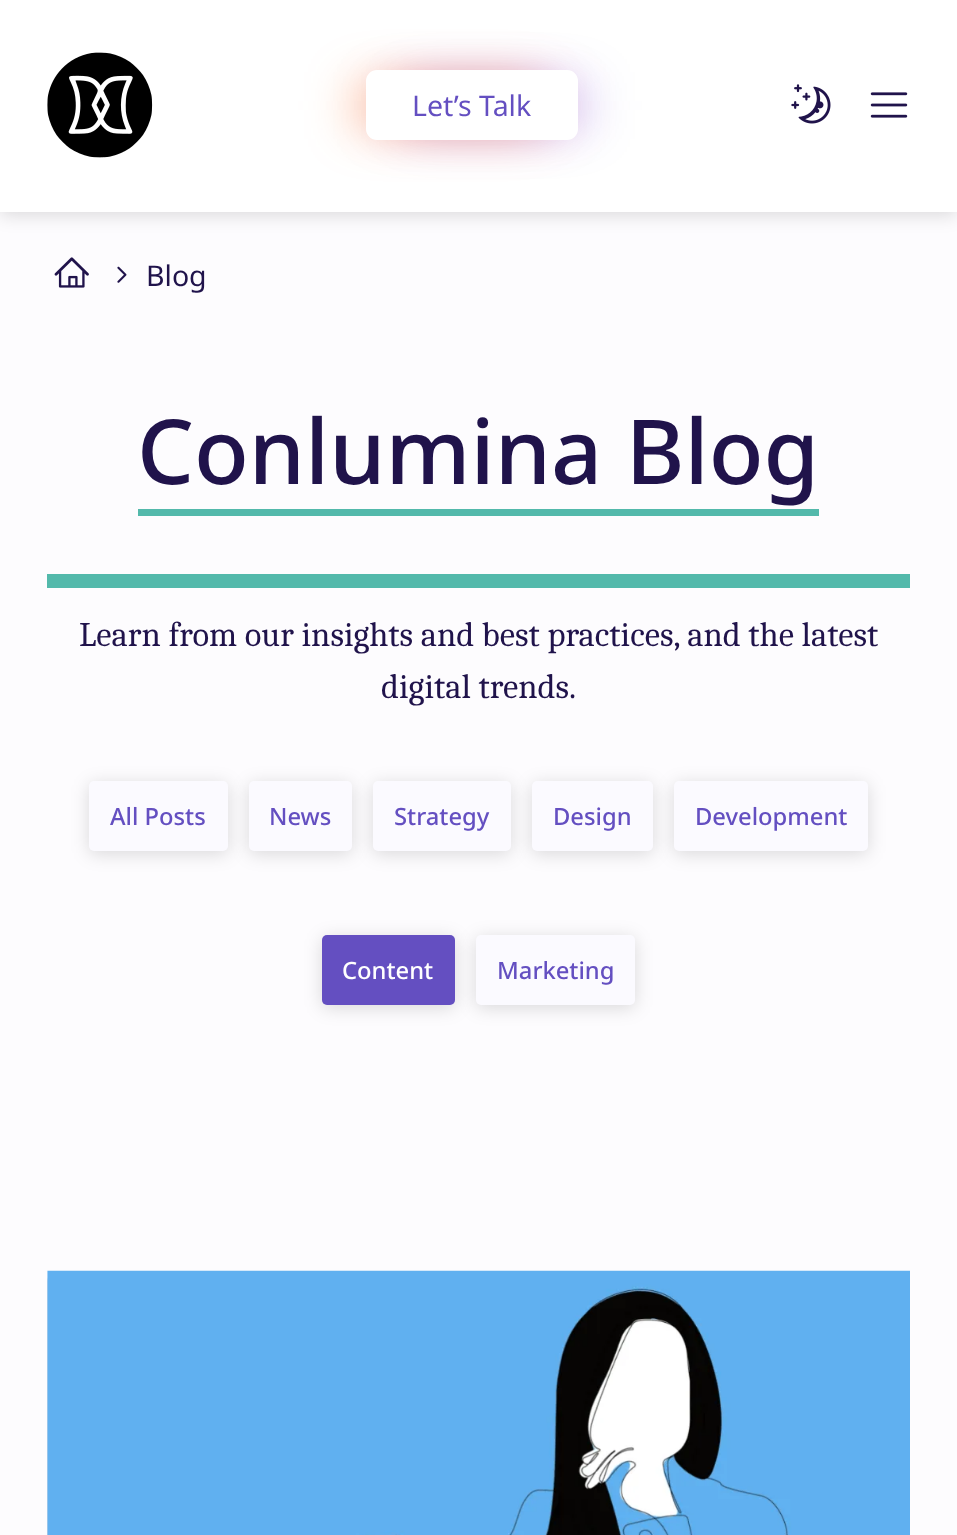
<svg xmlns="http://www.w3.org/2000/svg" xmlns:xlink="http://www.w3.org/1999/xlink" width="957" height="1535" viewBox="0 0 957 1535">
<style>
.cls-1{font:28.5px Noto Sans;fill:#644fc1}
.cls-2{font:28.5px Noto Sans;fill:#20134b}
.cls-3{font:500 89.75px Noto Sans;fill:#20134b}
.cls-4{font:34.6px Caladea;fill:#20134b}
.cls-5{font:500 23.75px Noto Sans;fill:#644fc1}
.cls-6{font:500 23.75px Noto Sans;fill:#ffffff}
</style>
<rect width="100%" height="100%" fill="#fdfcfe"/>
<rect fill="#000000" fill-opacity="0.14" filter="blur(9px)" x="0" y="4" width="957" height="211"/>
<rect fill="#ffffff" x="0" y="0" width="957" height="212"/>
<image xlink:href="image0.png" x="47" y="52" width="106" height="106"/>
<rect fill="#2b01d4" fill-opacity="0.28" filter="blur(26px)" x="410" y="88" width="176" height="35"/>
<rect fill="#c40079" fill-opacity="0.32" filter="blur(26px)" x="383" y="88" width="177" height="35"/>
<rect fill="#ff6601" fill-opacity="0.49" filter="blur(26px)" x="357" y="88" width="177" height="35"/>
<rect fill="#ffffff" stroke="#ffffff" stroke-width="4" x="368" y="72" width="208" height="66" rx="9"/>
<image xlink:href="image1.png" x="791" y="84" width="40" height="40"/>
<image xlink:href="image2.png" x="870" y="92" width="38" height="26"/>
<image xlink:href="image3.png" x="54" y="257" width="35" height="31"/>
<image xlink:href="image4.png" x="117" y="266" width="10" height="17"/>
<rect fill="#53b9ab" x="138" y="509" width="681" height="7"/>
<rect fill="#53b9ab" x="47" y="574" width="863" height="14"/>
<rect fill="#000000" fill-opacity="0.14" filter="blur(9px)" x="89" y="784" width="139" height="70" rx="5"/>
<rect fill="#fbfaff" x="89" y="781" width="139" height="70" rx="5"/>
<rect fill="#000000" fill-opacity="0.14" filter="blur(9px)" x="249" y="784" width="103" height="70" rx="5"/>
<rect fill="#fbfaff" x="249" y="781" width="103" height="70" rx="5"/>
<rect fill="#000000" fill-opacity="0.14" filter="blur(9px)" x="373" y="784" width="138" height="70" rx="5"/>
<rect fill="#fbfaff" x="373" y="781" width="138" height="70" rx="5"/>
<rect fill="#000000" fill-opacity="0.14" filter="blur(9px)" x="532" y="784" width="121" height="70" rx="5"/>
<rect fill="#fbfaff" x="532" y="781" width="121" height="70" rx="5"/>
<rect fill="#000000" fill-opacity="0.14" filter="blur(9px)" x="674" y="784" width="194" height="70" rx="5"/>
<rect fill="#fbfaff" x="674" y="781" width="194" height="70" rx="5"/>
<rect fill="#000000" fill-opacity="0.14" filter="blur(9px)" x="322" y="938" width="133" height="70" rx="5"/>
<rect fill="#644fc1" x="322" y="935" width="133" height="70" rx="5"/>
<rect fill="#000000" fill-opacity="0.14" filter="blur(9px)" x="476" y="938" width="159" height="70" rx="5"/>
<rect fill="#fbfaff" x="476" y="935" width="159" height="70" rx="5"/>
<rect fill="none" stroke="#e2e1e5" stroke-width="2" x="48" y="1272" width="861" height="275" rx="10"/>
<image xlink:href="image5.png" x="47" y="1270" width="863" height="265"/>
<text class="cls-1" x="412" y="116">Let’s Talk</text>
<text class="cls-2" x="146" y="286">Blog</text>
<text class="cls-3" x="137" y="484">Conlumina Blog</text>
<text class="cls-4" x="79" y="646">Learn from our insights and best practices, and the latest</text>
<text class="cls-4" x="381" y="698">digital trends.</text>
<text class="cls-5" x="110" y="825">All Posts</text>
<text class="cls-5" x="269" y="825">News</text>
<text class="cls-5" x="394" y="825">Strategy</text>
<text class="cls-5" x="553" y="825">Design</text>
<text class="cls-5" x="695" y="825">Development</text>
<text class="cls-6" x="342" y="979">Content</text>
<text class="cls-5" x="497" y="979">Marketing</text>
</svg>
